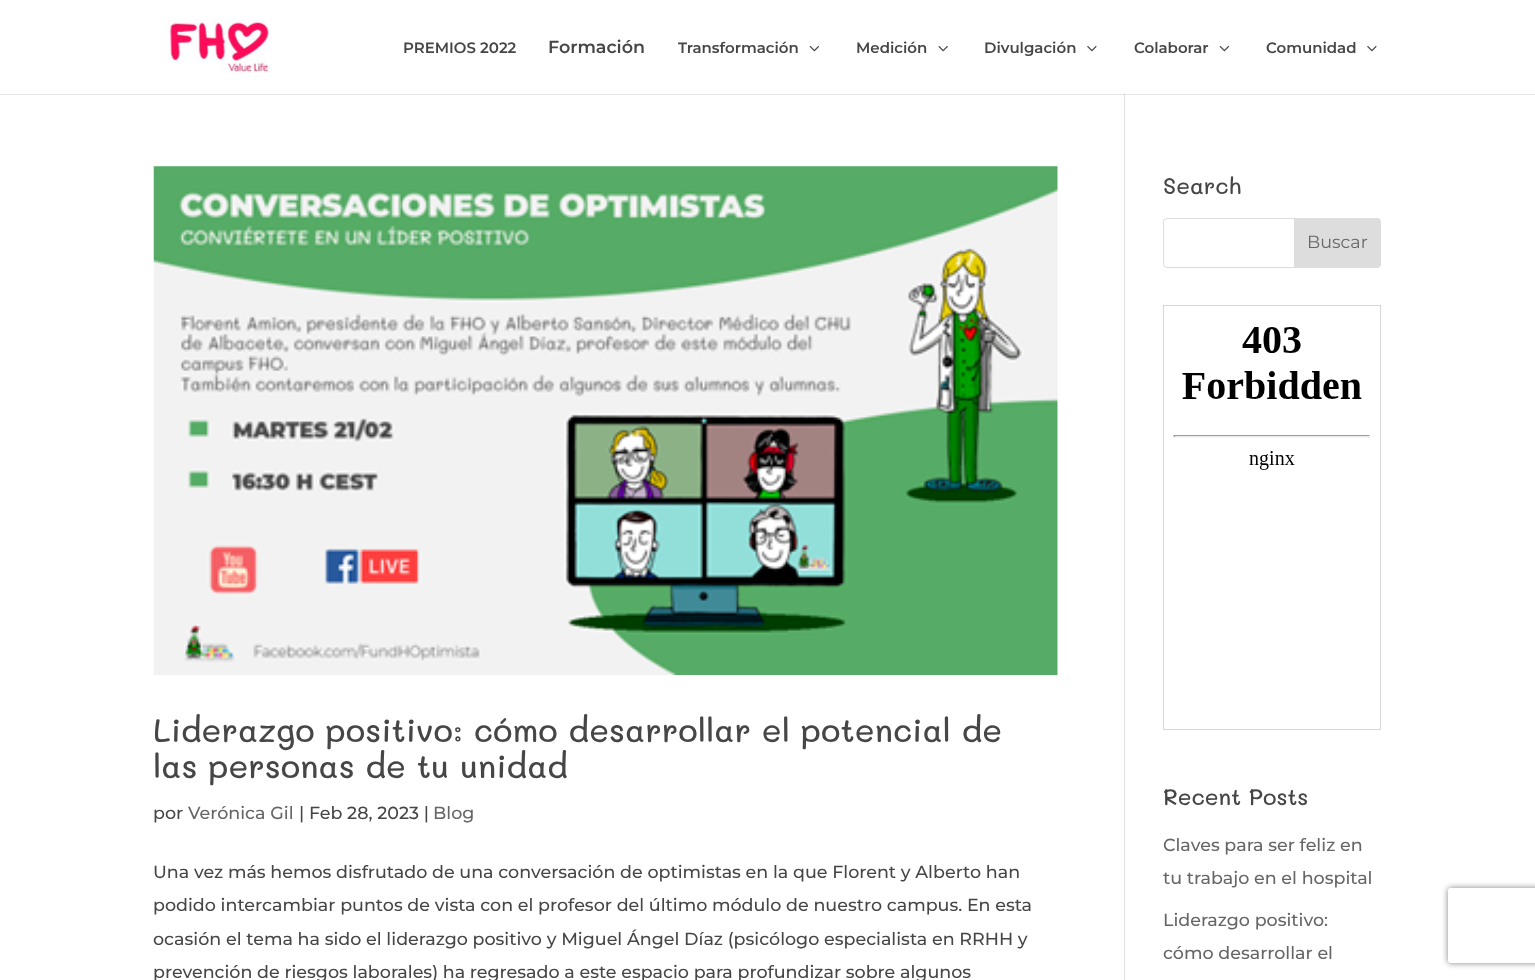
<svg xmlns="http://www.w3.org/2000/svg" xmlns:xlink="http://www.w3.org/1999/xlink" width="1535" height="980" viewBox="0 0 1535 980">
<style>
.cls-1{font:600 15px Montserrat;fill:#464646}
.cls-2{font:600 17.5px Montserrat;fill:#464646}
.cls-3{font:500 32.5px Mali;fill:#464646}
.cls-4{font:500 17.5px Montserrat;fill:#464646}
.cls-5{font:500 17.5px Montserrat;fill:#666666}
.cls-6{font:500 22.5px Mali;fill:#464646}
.cls-7{font:17.5px Montserrat;fill:#666666}
</style>
<defs>
<clipPath id="clip1"><path d="M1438 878H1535V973H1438ZM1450.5 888H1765.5C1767 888 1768 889 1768 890.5V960.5C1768 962 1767 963 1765.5 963H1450.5C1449 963 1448 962 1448 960.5V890.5C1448 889 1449 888 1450.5 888Z" clip-rule="evenodd"/></clipPath>
</defs>
<rect width="100%" height="100%" fill="#ffffff"/>
<rect fill="#e6e6e6" x="0" y="94" width="1535" height="1"/>
<image xlink:href="image0.png" x="167" y="19" width="106" height="54"/>
<image xlink:href="image1.png" x="809" y="46" width="10" height="6"/>
<image xlink:href="image2.png" x="938" y="46" width="10" height="6"/>
<image xlink:href="image3.png" x="1087" y="46" width="10" height="6"/>
<image xlink:href="image1.png" x="1219" y="46" width="10" height="6"/>
<image xlink:href="image3.png" x="1367" y="46" width="10" height="6"/>
<rect fill="#e2e2e2" x="1124" y="94" width="1" height="886"/>
<rect fill="#cbcbcb" x="1124" y="94" width="1" height="1"/>
<image xlink:href="image4.png" x="153" y="166" width="905" height="509"/>
<rect fill="none" stroke="#dddddd" x="1163.5" y="218.5" width="217" height="49" rx="3.5"/>
<path fill="#dddddd" stroke="#dddddd" d="M1294.5 218.5H1377C1379 218.5 1380.5 220 1380.5 222V264C1380.5 266 1379 267.5 1377 267.5H1294.5Z"/>
<rect fill="none" stroke="#d7d7d7" x="1163.5" y="305.5" width="217" height="424"/>
<image xlink:href="image5.png" x="1173" y="327" width="197" height="143"/>
<g clip-path="url(#clip1)">
<rect fill="#808080" filter="blur(3px)" x="1448" y="888" width="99" height="75" rx="2.5"/>
</g>
<text class="cls-1" x="403" y="53">PREMIOS 2022</text>
<text class="cls-2" x="548" y="53">Formación</text>
<text class="cls-1" x="678" y="53">Transformación</text>
<text class="cls-1" x="856" y="53">Medición</text>
<text class="cls-1" x="984" y="53">Divulgación</text>
<text class="cls-1" x="1134" y="53">Colaborar</text>
<text class="cls-1" x="1266" y="53">Comunidad</text>
<text class="cls-3"><tspan x="153" y="742">Liderazgo positivo: cómo desarrollar el potencial de</tspan><tspan x="153" y="778">las personas de tu unidad</tspan></text>
<text class="cls-4" x="153" y="819">por</text>
<text class="cls-5" x="188" y="819">Verónica Gil</text>
<text class="cls-4" x="299" y="819">| Feb 28, 2023 |</text>
<text class="cls-5" x="433" y="819">Blog</text>
<text class="cls-4"><tspan x="153" y="878">Una vez más hemos disfrutado de una conversación de optimistas en la que Florent y Alberto han</tspan><tspan x="153" y="911">podido intercambiar puntos de vista con el profesor del último módulo de nuestro campus. En esta</tspan><tspan x="153" y="945">ocasión el tema ha sido el liderazgo positivo y Miguel Ángel Díaz (psicólogo especialista en RRHH y</tspan><tspan x="153" y="978">prevención de riesgos laborales) ha regresado a este espacio para profundizar sobre algunos</tspan></text>
<text class="cls-6" x="1163" y="194">Search</text>
<text class="cls-7" x="1307" y="248">Buscar</text>
<text class="cls-6" x="1163" y="805">Recent Posts</text>
<text class="cls-5"><tspan x="1163" y="851">Claves para ser feliz en</tspan><tspan x="1163" y="884">tu trabajo en el hospital</tspan></text>
<text class="cls-5"><tspan x="1163" y="926">Liderazgo positivo:</tspan><tspan x="1163" y="959">cómo desarrollar el</tspan></text>
</svg>
